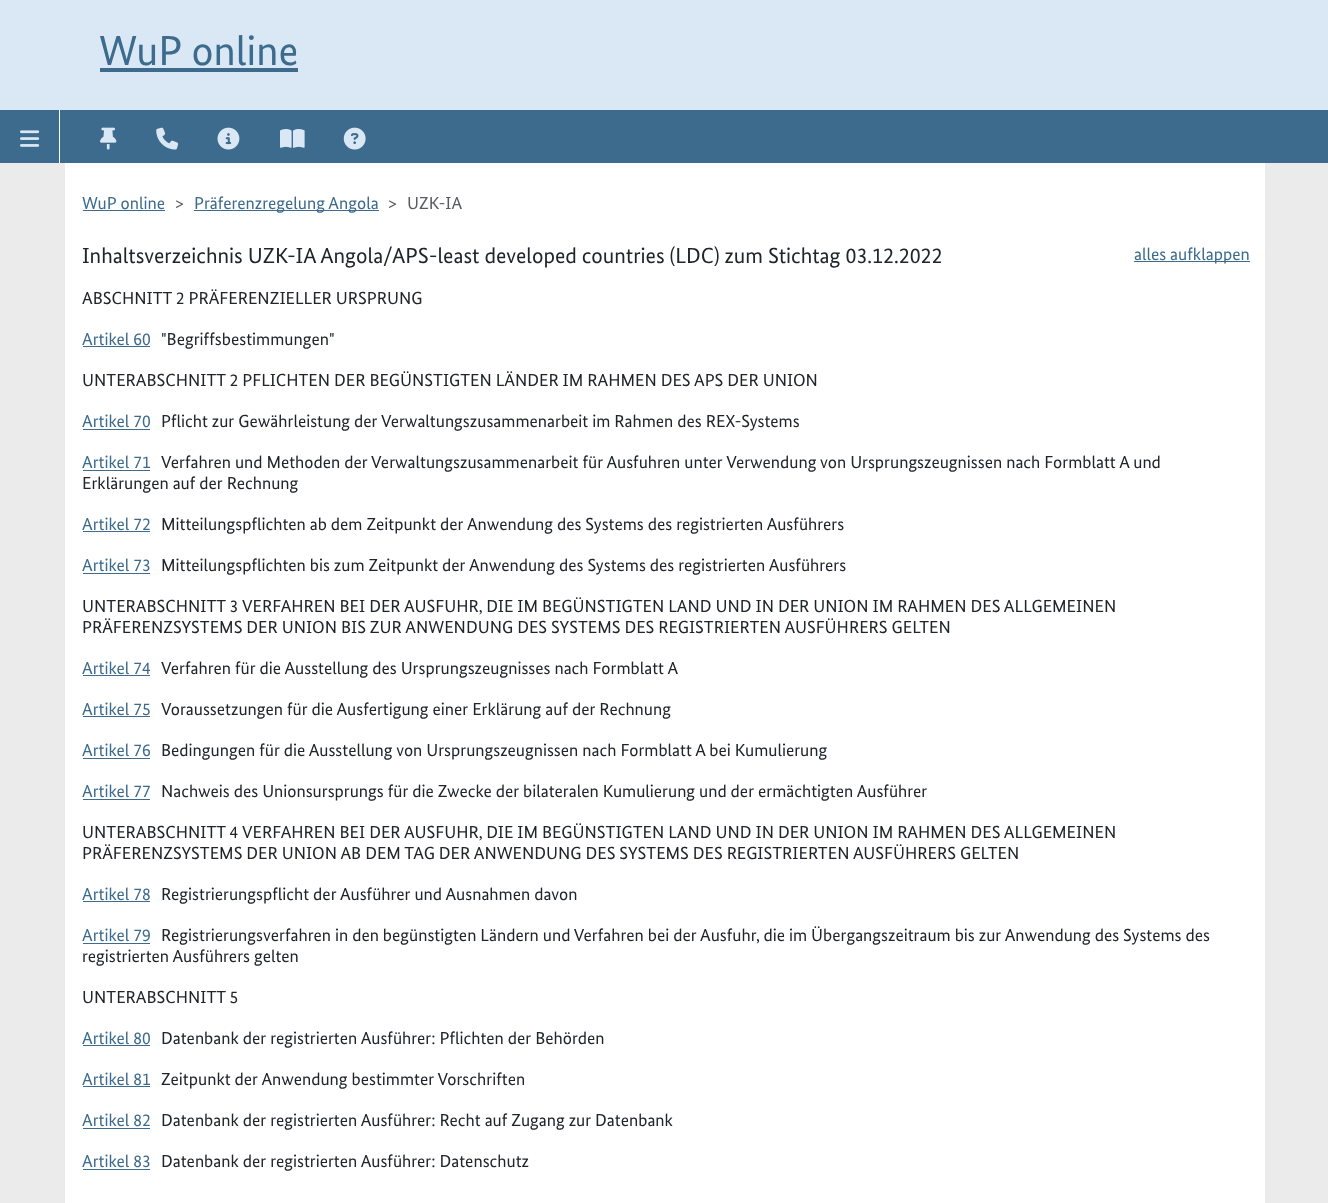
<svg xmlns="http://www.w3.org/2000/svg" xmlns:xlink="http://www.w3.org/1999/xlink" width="1328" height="1203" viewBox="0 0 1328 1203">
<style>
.cls-1{font:42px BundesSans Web;fill:#3d6b8d}
.cls-2{font:17.5px BundesSans Web;fill:#3d6b8d}
.cls-3{font:17.5px BundesSans Web;fill:#595c5f}
.cls-4{font:21.9px BundesSans Web;fill:#212529}
.cls-5{font:17.5px BundesSans Web;fill:#212529}
</style>
<rect width="100%" height="100%" fill="#dae8f5"/>
<rect fill="#3d6b8d" x="100" y="68" width="198" height="4"/>
<rect fill="#3d6b8d" x="0" y="110" width="1328" height="53"/>
<rect fill="#ffffff" x="59" y="110" width="1" height="53"/>
<image xlink:href="image0.png" x="20" y="130" width="20" height="17"/>
<image xlink:href="image1.png" x="100" y="127" width="17" height="23"/>
<image xlink:href="image2.png" x="156" y="127" width="23" height="23"/>
<image xlink:href="image3.png" x="217" y="127" width="23" height="23"/>
<image xlink:href="image4.png" x="280" y="129" width="25" height="19"/>
<image xlink:href="image5.png" x="343" y="127" width="23" height="23"/>
<rect fill="#ebebeb" x="0" y="163" width="1328" height="1040"/>
<rect fill="#ffffff" x="65" y="163" width="1200" height="1040"/>
<rect fill="#3d6b8d" x="83" y="210" width="82" height="1"/>
<rect fill="#3d6b8d" x="194" y="210" width="185" height="1"/>
<rect fill="#3d6b8d" x="1134" y="261" width="116" height="1"/>
<rect fill="#3d6b8d" x="83" y="346" width="67" height="1"/>
<rect fill="#3d6b8d" x="83" y="429" width="67" height="1"/>
<rect fill="#3d6b8d" x="83" y="470" width="67" height="1"/>
<rect fill="#3d6b8d" x="83" y="531" width="67" height="1"/>
<rect fill="#3d6b8d" x="83" y="573" width="67" height="1"/>
<rect fill="#3d6b8d" x="83" y="675" width="67" height="1"/>
<rect fill="#3d6b8d" x="83" y="716" width="67" height="1"/>
<rect fill="#3d6b8d" x="83" y="758" width="67" height="1"/>
<rect fill="#3d6b8d" x="83" y="799" width="67" height="1"/>
<rect fill="#3d6b8d" x="83" y="901" width="67" height="1"/>
<rect fill="#3d6b8d" x="83" y="943" width="67" height="1"/>
<rect fill="#3d6b8d" x="83" y="1045" width="67" height="1"/>
<rect fill="#3d6b8d" x="83" y="1086" width="67" height="1"/>
<rect fill="#3d6b8d" x="83" y="1128" width="67" height="1"/>
<rect fill="#3d6b8d" x="83" y="1169" width="67" height="1"/>
<text class="cls-1" x="99" y="65">WuP online</text>
<text class="cls-2" x="82" y="209">WuP online</text>
<text class="cls-3" x="175" y="209">&gt;</text>
<text class="cls-2" x="194" y="209">Präferenzregelung Angola</text>
<text class="cls-3" x="388" y="209">&gt;</text>
<text class="cls-3" x="407" y="209">UZK-IA</text>
<text class="cls-4" x="82" y="263">Inhaltsverzeichnis UZK-IA Angola/APS-least developed countries (LDC) zum Stichtag 03.12.2022</text>
<text class="cls-2" x="1134" y="260">alles aufklappen</text>
<text class="cls-5" x="82" y="304">ABSCHNITT 2 PRÄFERENZIELLER URSPRUNG</text>
<text class="cls-2" x="82" y="345">Artikel 60</text>
<text class="cls-5" x="161" y="345">"Begriffsbestimmungen"</text>
<text class="cls-5" x="82" y="386">UNTERABSCHNITT 2 PFLICHTEN DER BEGÜNSTIGTEN LÄNDER IM RAHMEN DES APS DER UNION</text>
<text class="cls-2" x="82" y="427">Artikel 70</text>
<text class="cls-5" x="161" y="427">Pflicht zur Gewährleistung der Verwaltungszusammenarbeit im Rahmen des REX-Systems</text>
<text class="cls-2" x="82" y="468">Artikel 71</text>
<text class="cls-5" x="161" y="468">Verfahren und Methoden der Verwaltungszusammenarbeit für Ausfuhren unter Verwendung von Ursprungszeugnissen nach Formblatt A und</text>
<text class="cls-5" x="82" y="489">Erklärungen auf der Rechnung</text>
<text class="cls-2" x="82" y="530">Artikel 72</text>
<text class="cls-5" x="161" y="530">Mitteilungspflichten ab dem Zeitpunkt der Anwendung des Systems des registrierten Ausführers</text>
<text class="cls-2" x="82" y="571">Artikel 73</text>
<text class="cls-5" x="161" y="571">Mitteilungspflichten bis zum Zeitpunkt der Anwendung des Systems des registrierten Ausführers</text>
<text class="cls-5" x="82" y="612">UNTERABSCHNITT 3</text>
<text class="cls-5" x="242" y="612">VERFAHREN BEI DER AUSFUHR, DIE IM BEGÜNSTIGTEN LAND UND IN DER UNION IM RAHMEN DES ALLGEMEINEN</text>
<text class="cls-5" x="82" y="633">PRÄFERENZSYSTEMS DER UNION BIS ZUR ANWENDUNG DES SYSTEMS DES REGISTRIERTEN AUSFÜHRERS GELTEN</text>
<text class="cls-2" x="82" y="674">Artikel 74</text>
<text class="cls-5" x="161" y="674">Verfahren für die Ausstellung des Ursprungszeugnisses nach Formblatt A</text>
<text class="cls-2" x="82" y="715">Artikel 75</text>
<text class="cls-5" x="161" y="715">Voraussetzungen für die Ausfertigung einer Erklärung auf der Rechnung</text>
<text class="cls-2" x="82" y="756">Artikel 76</text>
<text class="cls-5" x="161" y="756">Bedingungen für die Ausstellung von Ursprungszeugnissen nach Formblatt A bei Kumulierung</text>
<text class="cls-2" x="82" y="797">Artikel 77</text>
<text class="cls-5" x="161" y="797">Nachweis des Unionsursprungs für die Zwecke der bilateralen Kumulierung und der ermächtigten Ausführer</text>
<text class="cls-5" x="82" y="838">UNTERABSCHNITT 4</text>
<text class="cls-5" x="242" y="838">VERFAHREN BEI DER AUSFUHR, DIE IM BEGÜNSTIGTEN LAND UND IN DER UNION IM RAHMEN DES ALLGEMEINEN</text>
<text class="cls-5" x="82" y="859">PRÄFERENZSYSTEMS DER UNION AB DEM TAG DER ANWENDUNG DES SYSTEMS DES REGISTRIERTEN AUSFÜHRERS GELTEN</text>
<text class="cls-2" x="82" y="900">Artikel 78</text>
<text class="cls-5" x="161" y="900">Registrierungspflicht der Ausführer und Ausnahmen davon</text>
<text class="cls-2" x="82" y="941">Artikel 79</text>
<text class="cls-5" x="161" y="941">Registrierungsverfahren in den begünstigten Ländern und Verfahren bei der Ausfuhr, die im Übergangszeitraum bis zur Anwendung des Systems des</text>
<text class="cls-5" x="82" y="962">registrierten Ausführers gelten</text>
<text class="cls-5" x="82" y="1003">UNTERABSCHNITT 5</text>
<text class="cls-2" x="82" y="1044">Artikel 80</text>
<text class="cls-5" x="161" y="1044">Datenbank der registrierten Ausführer: Pflichten der Behörden</text>
<text class="cls-2" x="82" y="1085">Artikel 81</text>
<text class="cls-5" x="161" y="1085">Zeitpunkt der Anwendung bestimmter Vorschriften</text>
<text class="cls-2" x="82" y="1126">Artikel 82</text>
<text class="cls-5" x="161" y="1126">Datenbank der registrierten Ausführer: Recht auf Zugang zur Datenbank</text>
<text class="cls-2" x="82" y="1167">Artikel 83</text>
<text class="cls-5" x="161" y="1167">Datenbank der registrierten Ausführer: Datenschutz</text>
</svg>
